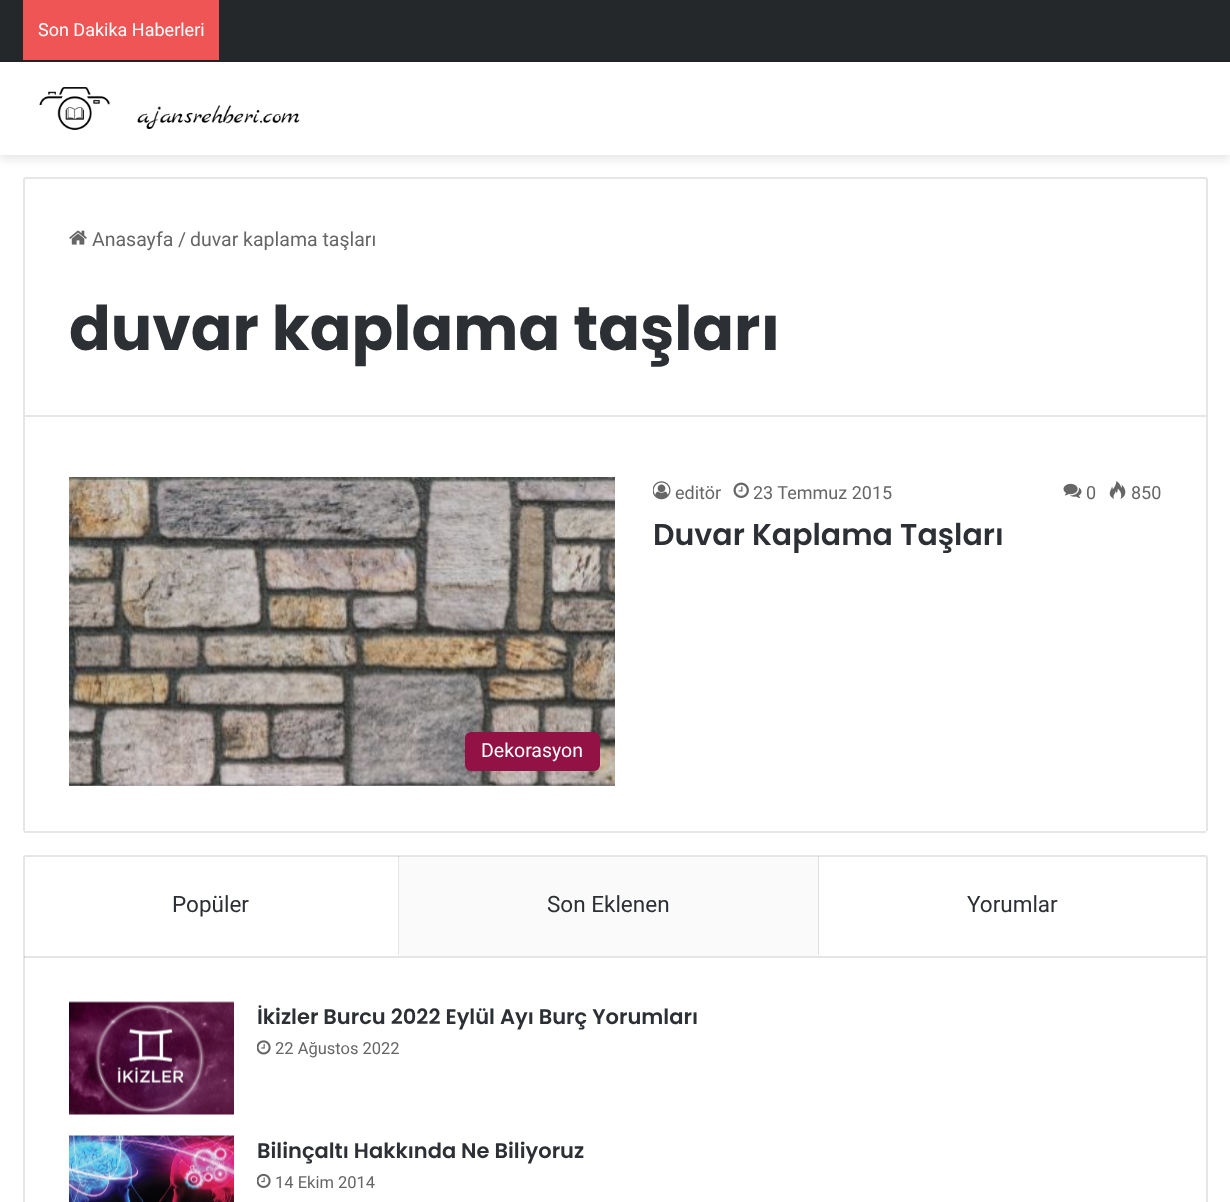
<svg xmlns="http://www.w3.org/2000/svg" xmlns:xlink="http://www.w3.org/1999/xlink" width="1230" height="1202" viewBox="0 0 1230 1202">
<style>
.cls-1{font:18px Roboto;fill:#ffffff}
.cls-2{font:19.5px Roboto;fill:#666666}
.cls-3{font:bold 61.5px Poppins;fill:#2c2f34}
.cls-4{font:18px Roboto;fill:#666666}
.cls-5{font:600 30px Poppins;fill:#2c2f34}
.cls-6{font:19.5px Roboto;fill:#ffffff}
.cls-7{font:22.5px Roboto;fill:#2c2f34}
.cls-8{font:600 21px Poppins;fill:#2c2f34}
.cls-9{font:16.5px Roboto;fill:#666666}
</style>
<rect width="100%" height="100%" fill="#ffffff"/>
<rect fill="#000000" fill-opacity="0.1" filter="blur(5px)" x="0" y="66" width="1230" height="93"/>
<rect fill="#25282b" x="0" y="0" width="1230" height="60"/>
<rect fill="#212427" x="0" y="60" width="1230" height="2"/>
<rect fill="#f05555" x="23" y="0" width="196" height="60"/>
<rect fill="#ffffff" x="0" y="62" width="1230" height="93"/>
<image xlink:href="image0.png" x="39" y="87" width="261" height="43"/>
<path fill="none" stroke="#e6e6e6" stroke-width="2" d="M26 178H1205C1206 178 1207 179 1207 180V416H24V180C24 179 25 178 26 178Z"/>
<image xlink:href="image1.png" x="69" y="230" width="18" height="15"/>
<rect fill="#e6e6e6" x="1206" y="417" width="2" height="414"/>
<rect fill="#e6e6e6" x="24" y="831" width="1182" height="2"/>
<rect fill="#e6e6e6" x="23" y="417" width="2" height="414"/>
<image xlink:href="image2.png" x="653" y="481" width="18" height="19"/>
<image xlink:href="image3.png" x="733" y="482" width="16" height="16"/>
<image xlink:href="image4.png" x="1063" y="483" width="19" height="15"/>
<image xlink:href="image5.png" x="1109" y="481" width="17" height="18"/>
<image xlink:href="image6.png" x="69" y="477" width="546" height="309"/>
<rect fill="#921245" x="465" y="732" width="135" height="39" rx="6"/>
<rect fill="none" stroke="#e6e6e6" stroke-width="2" x="24" y="856" width="1183" height="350" rx="2"/>
<rect fill="#000000" fill-opacity="0.1" x="24" y="956" width="1182" height="2"/>
<path fill="#000000" fill-opacity="0.1" d="M399 856V956L398 954V856Z"/>
<rect fill="#fafafa" x="399" y="857" width="420" height="99"/>
<path fill="#000000" fill-opacity="0.1" d="M819 856V956L818 954V856Z"/>
<image xlink:href="image7.png" x="69" y="1001" width="165" height="114"/>
<image xlink:href="image8.png" x="257" y="1040" width="14" height="15"/>
<image xlink:href="image9.png" x="69" y="1135" width="165" height="67"/>
<image xlink:href="image10.png" x="257" y="1173" width="14" height="15"/>
<text class="cls-1" x="38" y="36">Son Dakika Haberleri</text>
<text class="cls-2" x="92" y="246">Anasayfa</text>
<text class="cls-2" x="178" y="246">/</text>
<text class="cls-2" x="190" y="246">duvar kaplama taşları</text>
<text class="cls-3" x="69" y="350">duvar kaplama taşları</text>
<text class="cls-4" x="675" y="499">editör</text>
<text class="cls-4" x="753" y="499">23 Temmuz 2015</text>
<text class="cls-4" x="1086" y="499">0</text>
<text class="cls-4" x="1131" y="499">850</text>
<text class="cls-5" x="653" y="545">Duvar Kaplama Taşları</text>
<text class="cls-6" x="481" y="757">Dekorasyon</text>
<text class="cls-7" x="172" y="912">Popüler</text>
<text class="cls-7" x="547" y="912">Son Eklenen</text>
<text class="cls-7" x="967" y="912">Yorumlar</text>
<text class="cls-8" x="257" y="1024">İkizler Burcu 2022 Eylül Ayı Burç Yorumları</text>
<text class="cls-9" x="275" y="1054">22 Ağustos 2022</text>
<text class="cls-8" x="257" y="1158">Bilinçaltı Hakkında Ne Biliyoruz</text>
<text class="cls-9" x="275" y="1188">14 Ekim 2014</text>
</svg>
